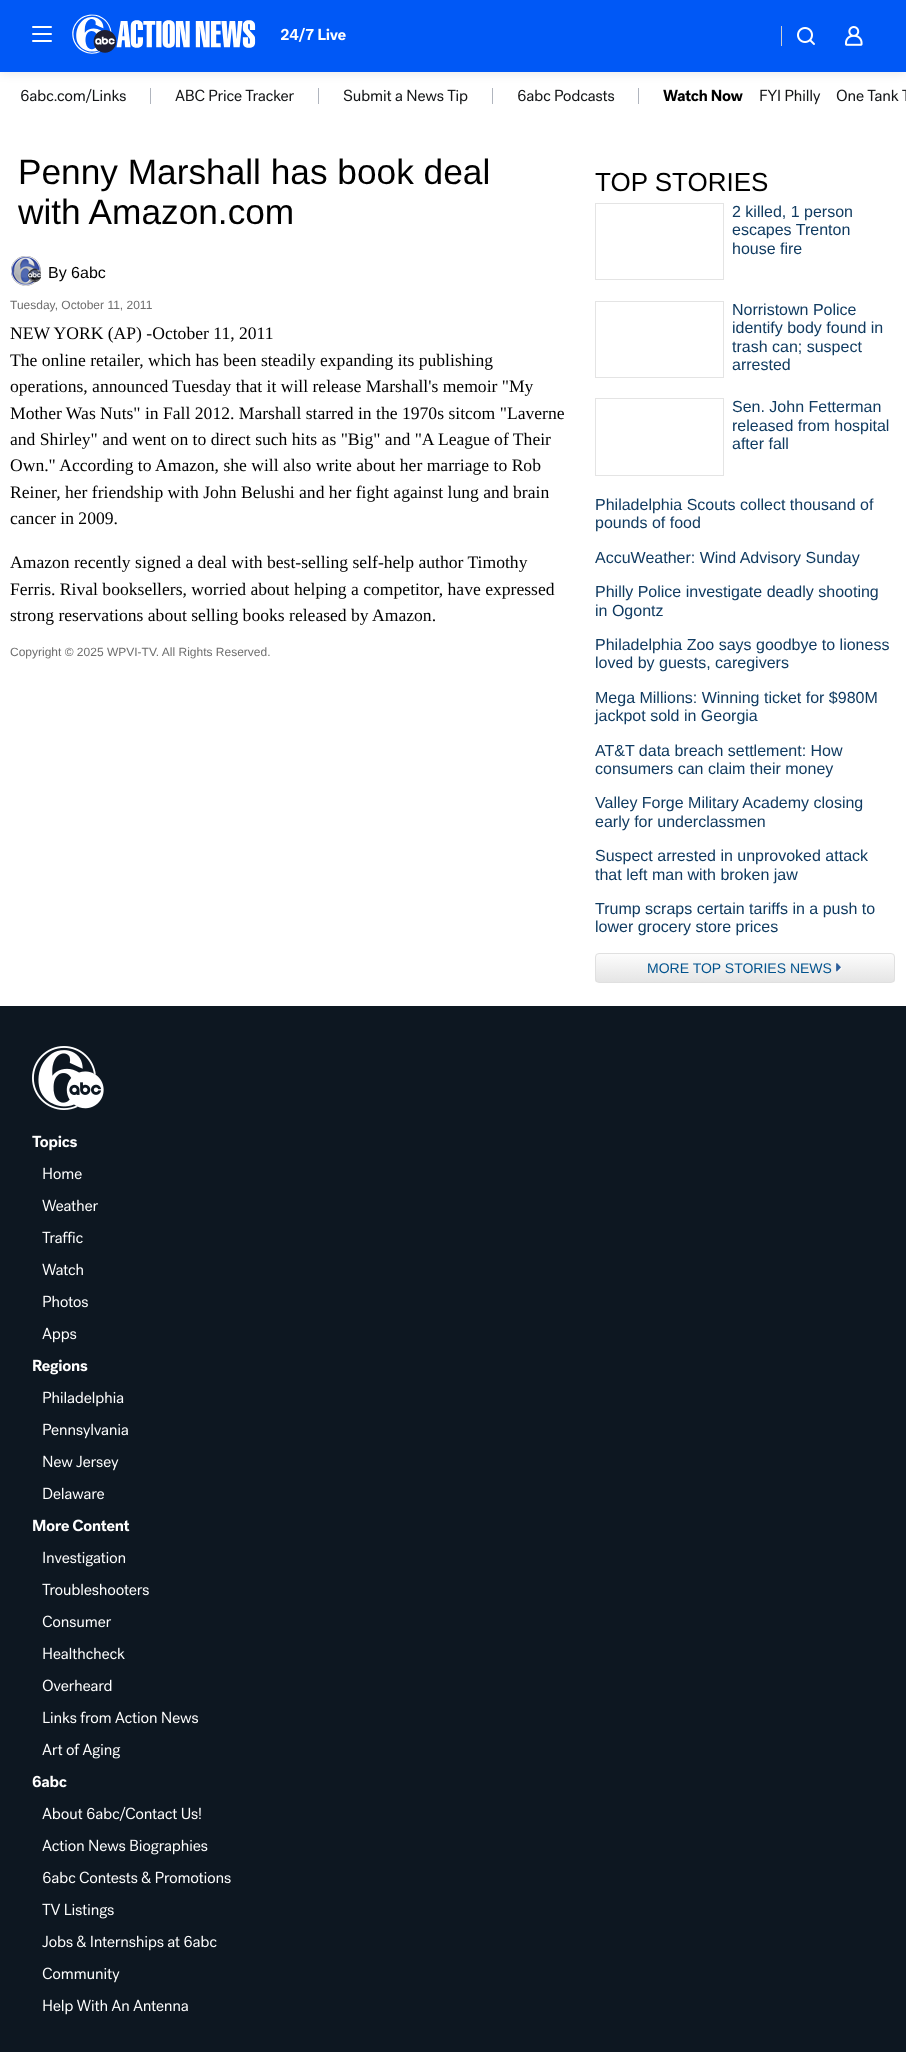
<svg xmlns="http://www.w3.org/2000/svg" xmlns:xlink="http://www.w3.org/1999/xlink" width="906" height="2052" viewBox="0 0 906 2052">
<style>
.cls-1{font:35.25px Liberation Sans;fill:#000000}
.cls-2{font:16px Liberation Sans;fill:#000000}
.cls-3{font:12px Liberation Sans;fill:#6e6e6e}
.cls-4{font:17.6px Liberation Serif;fill:#000000}
.cls-5{font:26px Liberation Sans;fill:#000000}
.cls-6{font:16px Liberation Sans;fill:#103b61}
.cls-7{font:14px Liberation Sans;fill:#00528d}
</style>
<defs>
<clipPath id="clip1"><rect x="595" y="953" width="300" height="30" rx="4"/></clipPath>
<linearGradient id="g1" gradientUnits="userSpaceOnUse" x1="745" y1="954" x2="745" y2="982"><stop offset="0" stop-color="#fcfcfc"/><stop offset="1" stop-color="#e5e5e5"/></linearGradient>
</defs>
<rect width="100%" height="100%" fill="#ffffff"/>
<image xlink:href="image4.png" x="21" y="88" width="105" height="15"/>
<rect fill="#b0b5be" x="150" y="88" width="1" height="16"/>
<image xlink:href="image5.png" x="175" y="89" width="119" height="13"/>
<rect fill="#b0b5be" x="318" y="88" width="1" height="16"/>
<image xlink:href="image6.png" x="343" y="89" width="125" height="16"/>
<rect fill="#b0b5be" x="492" y="88" width="1" height="16"/>
<image xlink:href="image7.png" x="518" y="89" width="97" height="13"/>
<rect fill="#b0b5be" x="638" y="88" width="1" height="16"/>
<image xlink:href="image8.png" x="663" y="89" width="80" height="13"/>
<image xlink:href="image9.png" x="760" y="89" width="61" height="16"/>
<image xlink:href="image10.png" x="836" y="89" width="70" height="13"/>
<rect fill="#000000" fill-opacity="0.08" filter="blur(5px)" x="0" y="2" width="906" height="72"/>
<rect fill="#0058f6" x="0" y="0" width="906" height="72"/>
<rect fill="#ffffff" x="32" y="33" width="20" height="2" rx="1"/>
<rect fill="#ffffff" x="32" y="26" width="20" height="2" rx="1"/>
<rect fill="#ffffff" x="32" y="40" width="20" height="2" rx="1"/>
<image xlink:href="image0.png" x="72" y="14" width="184" height="40"/>
<image xlink:href="image1.png" x="280" y="27" width="66" height="15"/>
<rect fill="#cecfcf" x="781" y="26" width="1" height="20"/>
<image xlink:href="image2.png" x="797" y="27" width="18" height="18"/>
<image xlink:href="image3.png" x="845" y="26" width="18" height="20"/>
<image xlink:href="image11.png" x="11" y="256" width="30" height="30"/>
<rect fill="none" stroke="#e4e4e4" x="595.5" y="203.5" width="128" height="76"/>
<rect fill="none" stroke="#e4e4e4" x="595.5" y="301.5" width="128" height="76"/>
<rect fill="none" stroke="#e4e4e4" x="595.5" y="398.5" width="128" height="77"/>
<g clip-path="url(#clip1)">
<rect fill="url(#g1)" x="595" y="954" width="300" height="28"/>
</g>
<rect fill="none" stroke="#e0e0e0" x="595.5" y="953.5" width="299" height="29" rx="3.5"/>
<image xlink:href="image12.png" x="836" y="963" width="6" height="9"/>
<rect fill="#0d1721" x="0" y="1006" width="906" height="1046"/>
<image xlink:href="image13.png" x="32" y="1046" width="72" height="64"/>
<image xlink:href="image14.png" x="32" y="1135" width="45" height="16"/>
<image xlink:href="image15.png" x="43" y="1167" width="39" height="13"/>
<image xlink:href="image16.png" x="42" y="1199" width="56" height="13"/>
<image xlink:href="image17.png" x="42" y="1231" width="41" height="13"/>
<image xlink:href="image18.png" x="42" y="1263" width="41" height="13"/>
<image xlink:href="image19.png" x="43" y="1295" width="45" height="13"/>
<image xlink:href="image20.png" x="42" y="1327" width="35" height="16"/>
<image xlink:href="image21.png" x="33" y="1359" width="55" height="16"/>
<image xlink:href="image22.png" x="43" y="1391" width="81" height="16"/>
<image xlink:href="image23.png" x="43" y="1423" width="85" height="16"/>
<image xlink:href="image24.png" x="43" y="1455" width="76" height="16"/>
<image xlink:href="image25.png" x="43" y="1487" width="62" height="13"/>
<image xlink:href="image26.png" x="33" y="1519" width="97" height="13"/>
<image xlink:href="image27.png" x="43" y="1551" width="83" height="16"/>
<image xlink:href="image28.png" x="42" y="1583" width="107" height="13"/>
<image xlink:href="image29.png" x="42" y="1615" width="70" height="13"/>
<image xlink:href="image30.png" x="43" y="1647" width="82" height="13"/>
<image xlink:href="image31.png" x="42" y="1679" width="70" height="13"/>
<image xlink:href="image32.png" x="43" y="1711" width="156" height="13"/>
<image xlink:href="image33.png" x="42" y="1743" width="79" height="16"/>
<image xlink:href="image34.png" x="32" y="1775" width="35" height="13"/>
<image xlink:href="image35.png" x="42" y="1806" width="159" height="15"/>
<image xlink:href="image36.png" x="42" y="1839" width="166" height="16"/>
<image xlink:href="image37.png" x="43" y="1871" width="188" height="13"/>
<image xlink:href="image38.png" x="42" y="1903" width="72" height="16"/>
<image xlink:href="image39.png" x="42" y="1935" width="175" height="16"/>
<image xlink:href="image40.png" x="42" y="1967" width="78" height="16"/>
<image xlink:href="image41.png" x="43" y="1999" width="145" height="16"/>
<text class="cls-1"><tspan x="18" y="184">Penny Marshall has book deal</tspan><tspan x="18" y="224">with Amazon.com</tspan></text>
<text class="cls-2" x="48" y="278">By 6abc</text>
<text class="cls-3" x="10" y="309">Tuesday, October 11, 2011</text>
<text class="cls-4"><tspan x="10" y="339">NEW YORK (AP) -October 11, 2011</tspan><tspan x="10" y="366">The online retailer, which has been steadily expanding its publishing</tspan><tspan x="10" y="392">operations, announced Tuesday that it will release Marshall's memoir "My</tspan><tspan x="10" y="419">Mother Was Nuts" in Fall 2012. Marshall starred in the 1970s sitcom "Laverne</tspan><tspan x="10" y="445">and Shirley" and went on to direct such hits as "Big" and "A League of Their</tspan><tspan x="10" y="471">Own." According to Amazon, she will also write about her marriage to Rob</tspan><tspan x="10" y="498">Reiner, her friendship with John Belushi and her fight against lung and brain</tspan><tspan x="10" y="524">cancer in 2009.</tspan></text>
<text class="cls-4"><tspan x="10" y="568">Amazon recently signed a deal with best-selling self-help author Timothy</tspan><tspan x="10" y="595">Ferris. Rival booksellers, worried about helping a competitor, have expressed</tspan><tspan x="10" y="621">strong reservations about selling books released by Amazon.</tspan></text>
<text class="cls-3" x="10" y="656">Copyright © 2025 WPVI-TV. All Rights Reserved.</text>
<text class="cls-5" x="595" y="191">TOP STORIES</text>
<text class="cls-6"><tspan x="732" y="217">2 killed, 1 person</tspan><tspan x="732" y="235">escapes Trenton</tspan><tspan x="732" y="254">house fire</tspan></text>
<text class="cls-6"><tspan x="732" y="315">Norristown Police</tspan><tspan x="732" y="333">identify body found in</tspan><tspan x="732" y="352">trash can; suspect</tspan><tspan x="732" y="370">arrested</tspan></text>
<text class="cls-6"><tspan x="732" y="412">Sen. John Fetterman</tspan><tspan x="732" y="431">released from hospital</tspan><tspan x="732" y="449">after fall</tspan></text>
<text class="cls-6"><tspan x="595" y="510">Philadelphia Scouts collect thousand of</tspan><tspan x="595" y="528">pounds of food</tspan></text>
<text class="cls-6" x="595" y="563">AccuWeather: Wind Advisory Sunday</text>
<text class="cls-6"><tspan x="595" y="597">Philly Police investigate deadly shooting</tspan><tspan x="595" y="616">in Ogontz</tspan></text>
<text class="cls-6"><tspan x="595" y="650">Philadelphia Zoo says goodbye to lioness</tspan><tspan x="595" y="668">loved by guests, caregivers</tspan></text>
<text class="cls-6"><tspan x="595" y="703">Mega Millions: Winning ticket for $980M</tspan><tspan x="595" y="721">jackpot sold in Georgia</tspan></text>
<text class="cls-6"><tspan x="595" y="756">AT&amp;T data breach settlement: How</tspan><tspan x="595" y="774">consumers can claim their money</tspan></text>
<text class="cls-6"><tspan x="595" y="808">Valley Forge Military Academy closing</tspan><tspan x="595" y="827">early for underclassmen</tspan></text>
<text class="cls-6"><tspan x="595" y="861">Suspect arrested in unprovoked attack</tspan><tspan x="595" y="880">that left man with broken jaw</tspan></text>
<text class="cls-6"><tspan x="595" y="914">Trump scraps certain tariffs in a push to</tspan><tspan x="595" y="932">lower grocery store prices</tspan></text>
<text class="cls-7" x="647" y="973">MORE TOP STORIES NEWS</text>
</svg>
